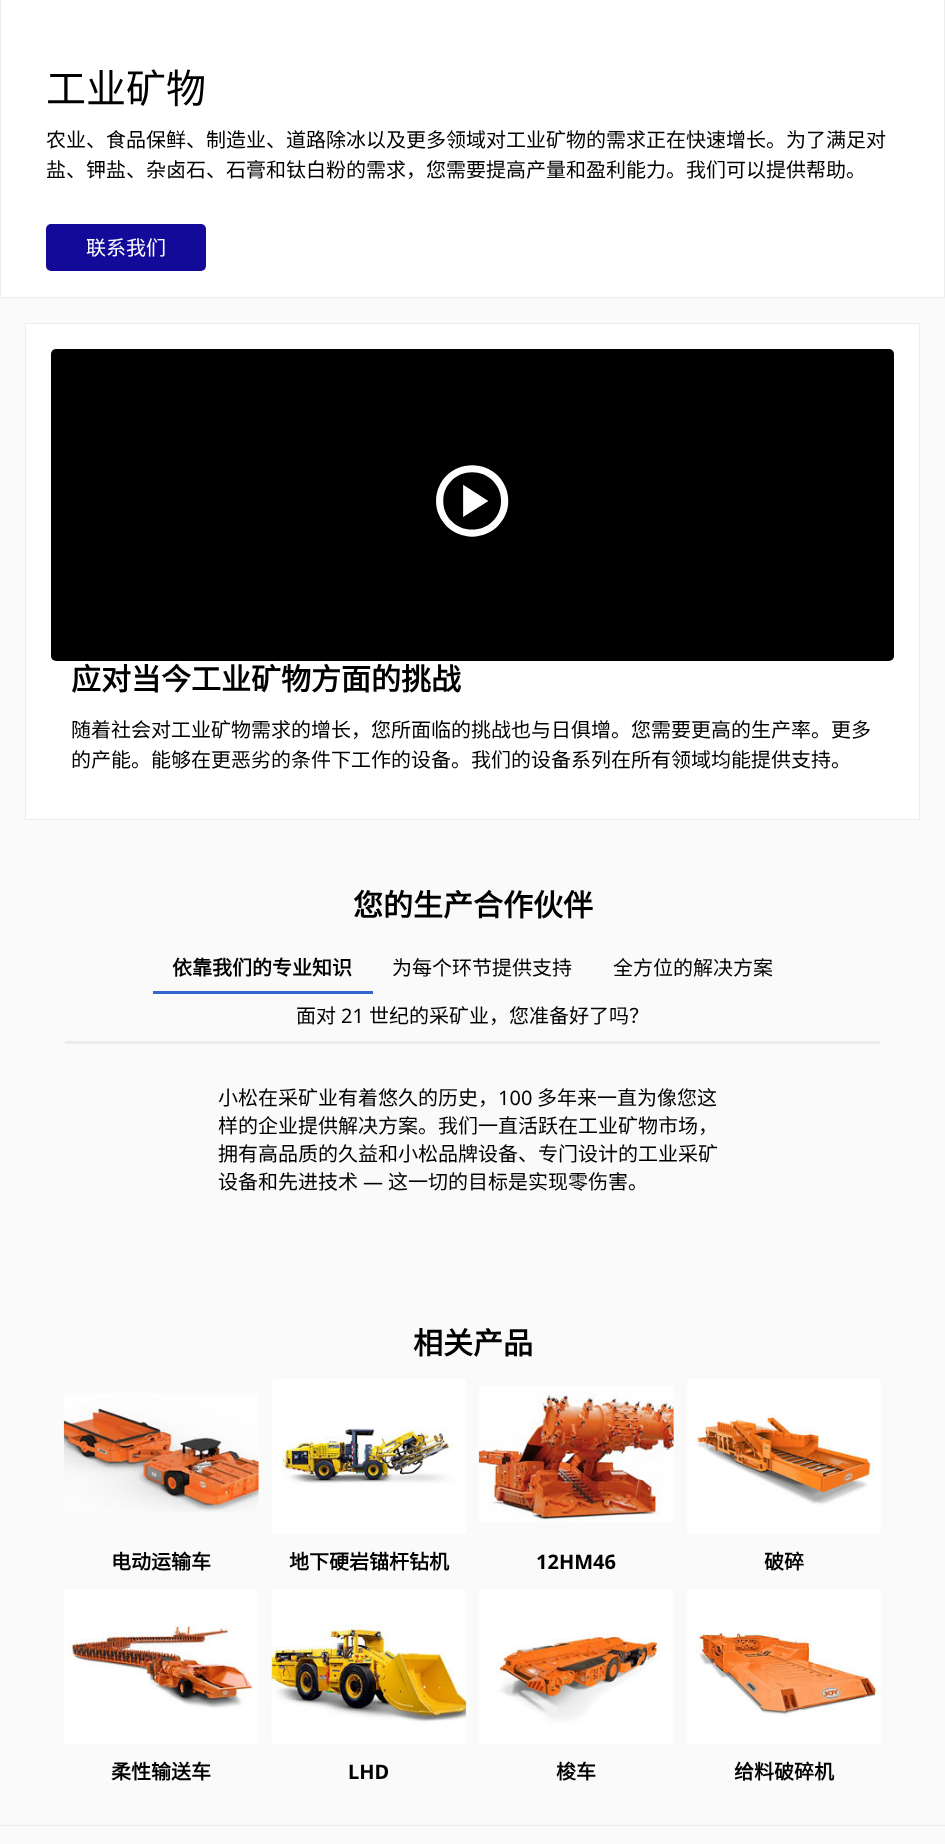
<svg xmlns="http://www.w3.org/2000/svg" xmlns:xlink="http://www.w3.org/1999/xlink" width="945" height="1844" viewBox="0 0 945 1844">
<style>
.cls-1{font:40px Noto Sans CJK SC;fill:#000000}
.cls-2{font:20px Noto Sans CJK SC;fill:#000000}
.cls-3{font:20px Noto Sans CJK SC;fill:#ffffff}
.cls-4{font:bold 30px Noto Sans CJK SC;fill:#000000}
.cls-5{font:bold 20px Noto Sans CJK SC;fill:#000000}
.cls-6{font:20px Noto Sans;fill:#000000}
.cls-7{font:bold 20px Noto Sans;fill:#000000}
</style>
<rect width="100%" height="100%" fill="#fafafa"/>
<rect fill="#ffffff" stroke="#ededed" x="0.5" y="-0.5" width="944" height="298"/>
<rect fill="#140a9a" x="46" y="224" width="160" height="47" rx="5"/>
<rect fill="#ffffff" stroke="#ededed" x="25.5" y="323.5" width="894" height="496"/>
<rect fill="#000000" x="51" y="349" width="843" height="312" rx="5"/>
<image xlink:href="image0.png" x="436" y="465" width="73" height="72"/>
<rect fill="#ededed" x="65" y="1041" width="815" height="3"/>
<rect fill="#3366cc" x="153" y="991" width="220" height="3"/>
<image xlink:href="image1.png" x="63" y="1393" width="196" height="119"/>
<image xlink:href="image2.png" x="272" y="1379" width="194" height="155"/>
<image xlink:href="image3.png" x="478" y="1386" width="196" height="136"/>
<image xlink:href="image4.png" x="687" y="1379" width="194" height="155"/>
<image xlink:href="image5.png" x="64" y="1589" width="194" height="155"/>
<image xlink:href="image6.png" x="271" y="1589" width="196" height="155"/>
<image xlink:href="image7.png" x="479" y="1589" width="194" height="155"/>
<image xlink:href="image8.png" x="687" y="1589" width="194" height="155"/>
<rect fill="#ededed" x="0" y="1825" width="945" height="1"/>
<text class="cls-1" x="46" y="103">工业矿物</text>
<text class="cls-2"><tspan x="46" y="147">农业、食品保鲜、制造业、道路除冰以及更多领域对工业矿物的需求正在快速增长。为了满足对</tspan><tspan x="46" y="177">盐、钾盐、杂卤石、石膏和钛白粉的需求，您需要提高产量和盈利能力。我们可以提供帮助。</tspan></text>
<text class="cls-3" x="86" y="255">联系我们</text>
<text class="cls-4" x="71" y="690">应对当今工业矿物方面的挑战</text>
<text class="cls-2"><tspan x="71" y="737">随着社会对工业矿物需求的增长，您所面临的挑战也与日俱增。您需要更高的生产率。更多</tspan><tspan x="71" y="767">的产能。能够在更恶劣的条件下工作的设备。我们的设备系列在所有领域均能提供支持。</tspan></text>
<text class="cls-4" x="353" y="916">您的生产合作伙伴</text>
<text class="cls-5" x="172" y="975">依靠我们的专业知识</text>
<text class="cls-2" x="392" y="975">为每个环节提供支持</text>
<text class="cls-2" x="613" y="975">全方位的解决方案</text>
<text class="cls-2" x="296" y="1023">面对</text>
<text class="cls-6" x="341" y="1023">21</text>
<text class="cls-2" x="369" y="1023">世纪的采矿业，您准备好了吗？</text>
<text class="cls-2" x="218" y="1105">小松在采矿业有着悠久的历史，</text>
<text class="cls-6" x="498" y="1105">100</text>
<text class="cls-2" x="537" y="1105">多年来一直为像您这</text>
<text class="cls-2"><tspan x="218" y="1133">样的企业提供解决方案。我们一直活跃在工业矿物市场，</tspan><tspan x="218" y="1161">拥有高品质的久益和小松品牌设备、专门设计的工业采矿</tspan><tspan x="218" y="1189">设备和先进技术</tspan></text>
<text class="cls-6" x="363" y="1189">—</text>
<text class="cls-2" x="388" y="1189">这一切的目标是实现零伤害。</text>
<text class="cls-4" x="413" y="1354">相关产品</text>
<text class="cls-5" x="111" y="1569">电动运输车</text>
<text class="cls-5" x="289" y="1569">地下硬岩锚杆钻机</text>
<text class="cls-7" x="536" y="1569">12HM46</text>
<text class="cls-5" x="764" y="1569">破碎</text>
<text class="cls-5" x="111" y="1779">柔性输送车</text>
<text class="cls-7" x="348" y="1779">LHD</text>
<text class="cls-5" x="556" y="1779">梭车</text>
<text class="cls-5" x="734" y="1779">给料破碎机</text>
</svg>
